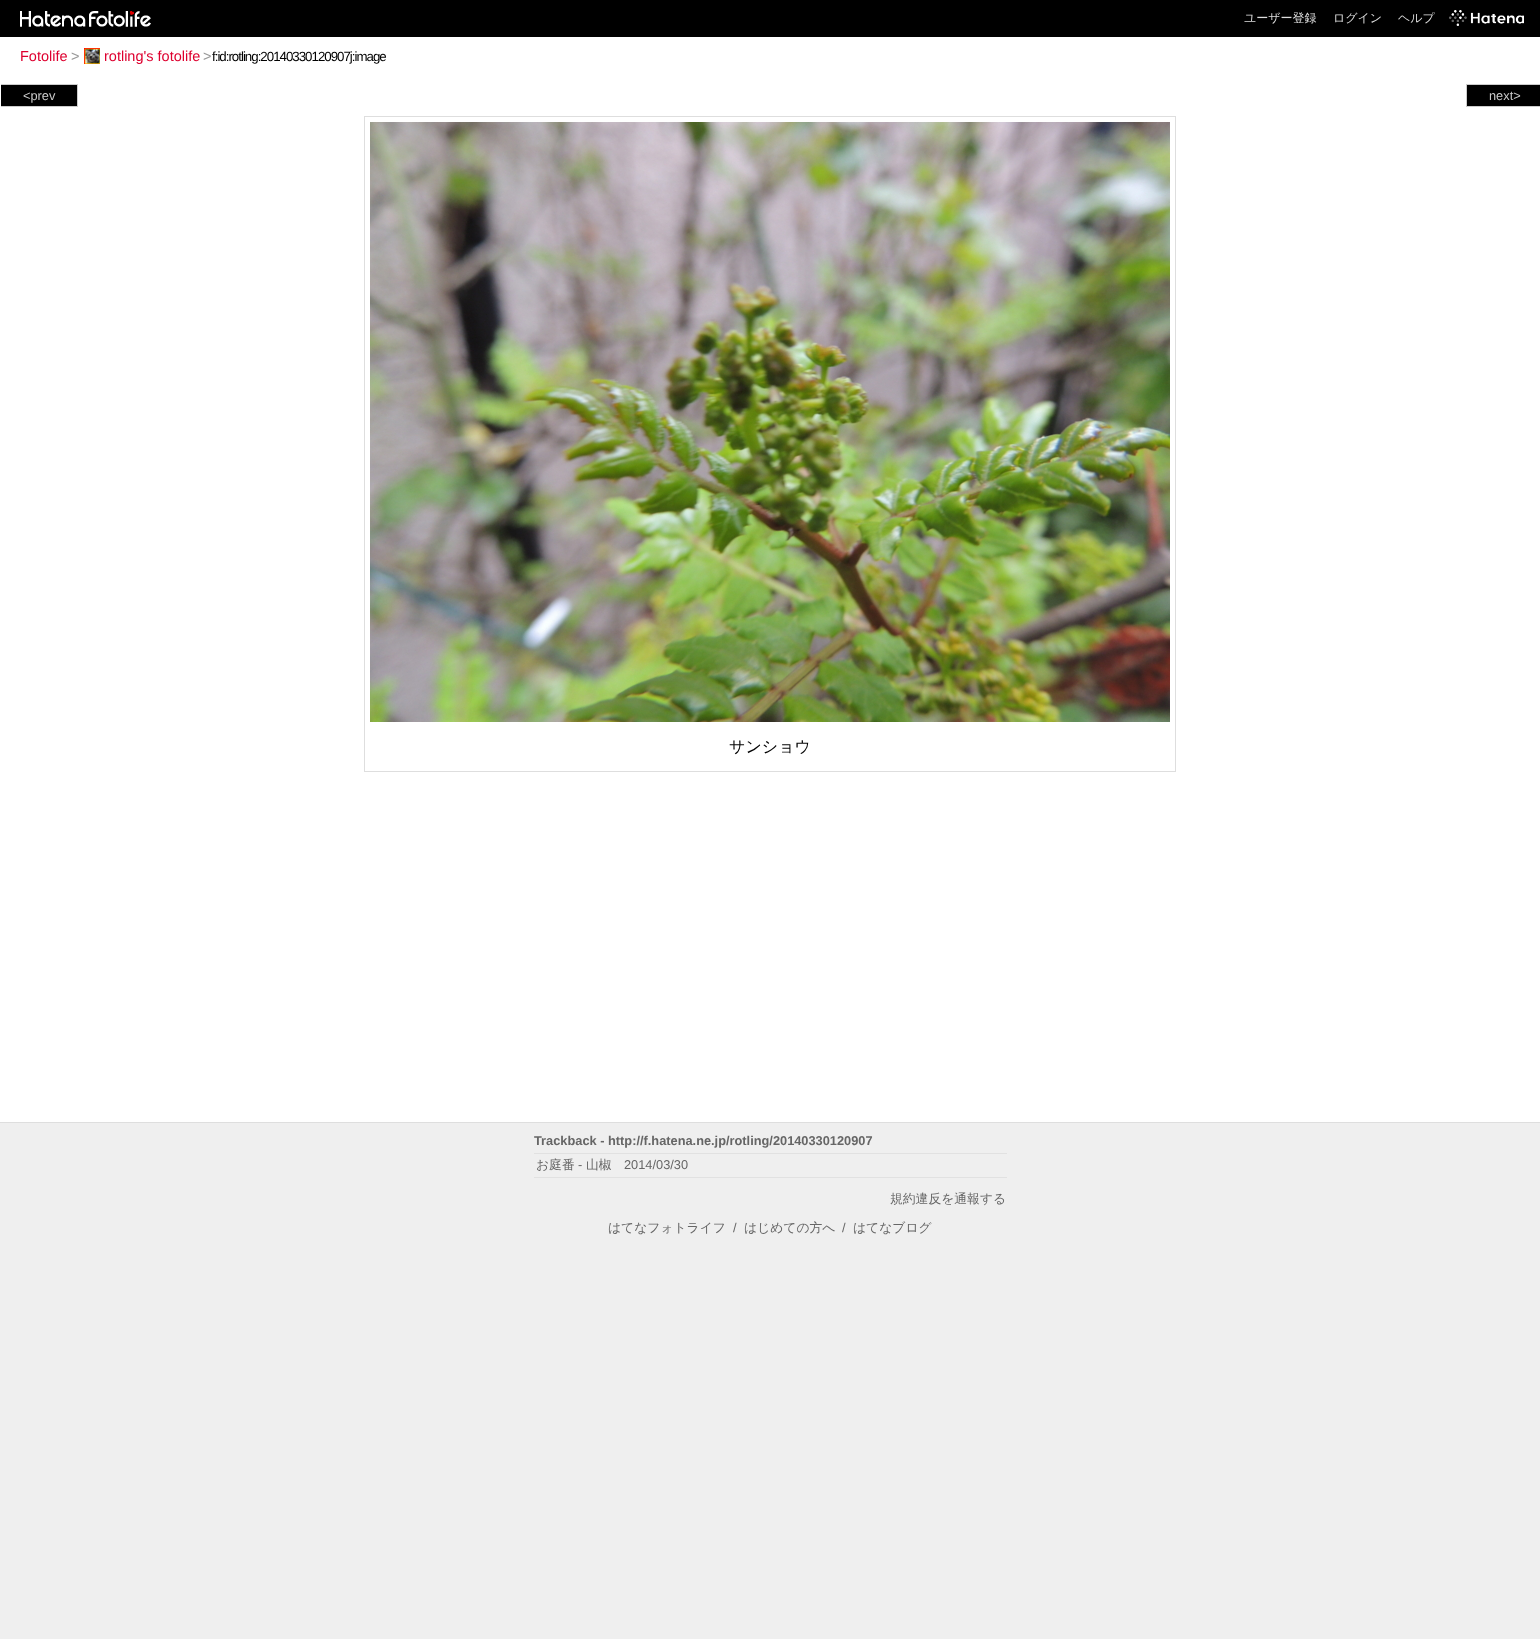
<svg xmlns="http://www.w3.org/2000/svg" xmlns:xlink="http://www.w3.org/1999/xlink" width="1540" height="1639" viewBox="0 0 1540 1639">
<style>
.cls-1{font:500 12px WenQuanYi Zen Hei;fill:#dddddd}
.cls-2{font:14.5px Liberation Sans;fill:#de002f}
.cls-3{font:14.5px Liberation Sans;fill:#999999}
.cls-4{font:13.3px Liberation Sans;letter-spacing:-1px;fill:#000000}
.cls-5{font:12.8px Liberation Sans;fill:#cccccc}
.cls-6{font:500 16px WenQuanYi Zen Hei;fill:#000000}
.cls-7{font:bold 12.8px Liberation Sans;fill:#666666}
.cls-8{font:500 12.8px WenQuanYi Zen Hei;fill:#666666}
.cls-9{font:12.8px Liberation Sans;fill:#666666}
</style>
<rect width="100%" height="100%" fill="#efefef"/>
<rect fill="#000000" x="0" y="0" width="1540" height="37"/>
<image xlink:href="image0.png" x="20" y="11" width="66" height="16"/>
<image xlink:href="image1.png" x="89" y="11" width="62" height="16"/>
<image xlink:href="image2.png" x="1449" y="10" width="75" height="16"/>
<rect fill="#ffffff" x="0" y="37" width="1540" height="1085"/>
<image xlink:href="image3.png" x="84" y="48" width="16" height="16"/>
<rect fill="#dedede" x="0" y="1122" width="1540" height="1"/>
<rect fill="#000000" x="1" y="85" width="76" height="21"/>
<rect fill="#cccccc" x="1" y="84" width="77" height="1"/>
<rect fill="#cccccc" x="77" y="84" width="1" height="23"/>
<rect fill="#cccccc" x="1" y="106" width="77" height="1"/>
<rect fill="#000000" x="1467" y="85" width="73" height="21"/>
<rect fill="#cccccc" x="1466" y="84" width="74" height="1"/>
<rect fill="#cccccc" x="1466" y="106" width="74" height="1"/>
<rect fill="#cccccc" x="1466" y="84" width="1" height="23"/>
<rect fill="none" stroke="#dedede" x="364.5" y="116.5" width="811" height="655"/>
<image xlink:href="image4.png" x="370" y="122" width="800" height="600"/>
<rect fill="#e1e1e1" x="534" y="1153" width="473" height="1"/>
<rect fill="#e1e1e1" x="534" y="1177" width="473" height="1"/>
<text class="cls-1" x="1244" y="22">ユーザー登録</text>
<text class="cls-1" x="1333" y="22">ログイン</text>
<text class="cls-1" x="1398" y="22">ヘルプ</text>
<text class="cls-2" x="20" y="61">Fotolife</text>
<text class="cls-3" x="71" y="61">&gt;</text>
<text class="cls-2" x="104" y="61">rotling's fotolife</text>
<text class="cls-3" x="203" y="61">&gt;</text>
<text class="cls-4" x="212" y="61">f:id:rotling:20140330120907j:image</text>
<text class="cls-5" x="23" y="100">&lt;prev</text>
<text class="cls-5" x="1489" y="100">next&gt;</text>
<text class="cls-6" x="729" y="752">サンショウ</text>
<text class="cls-7" x="534" y="1145">Trackback - http://f.hatena.ne.jp/rotling/20140330120907</text>
<text class="cls-8" x="536" y="1169">お庭番</text>
<text class="cls-9" x="578" y="1169">-</text>
<text class="cls-8" x="586" y="1169">山椒</text>
<text class="cls-9" x="624" y="1169">2014/03/30</text>
<text class="cls-8" x="890" y="1203">規約違反を通報する</text>
<text class="cls-8" x="608" y="1232">はてなフォトライフ</text>
<text class="cls-9" x="733" y="1232">/</text>
<text class="cls-8" x="744" y="1232">はじめての方へ</text>
<text class="cls-9" x="842" y="1232">/</text>
<text class="cls-8" x="853" y="1232">はてなブログ</text>
</svg>
